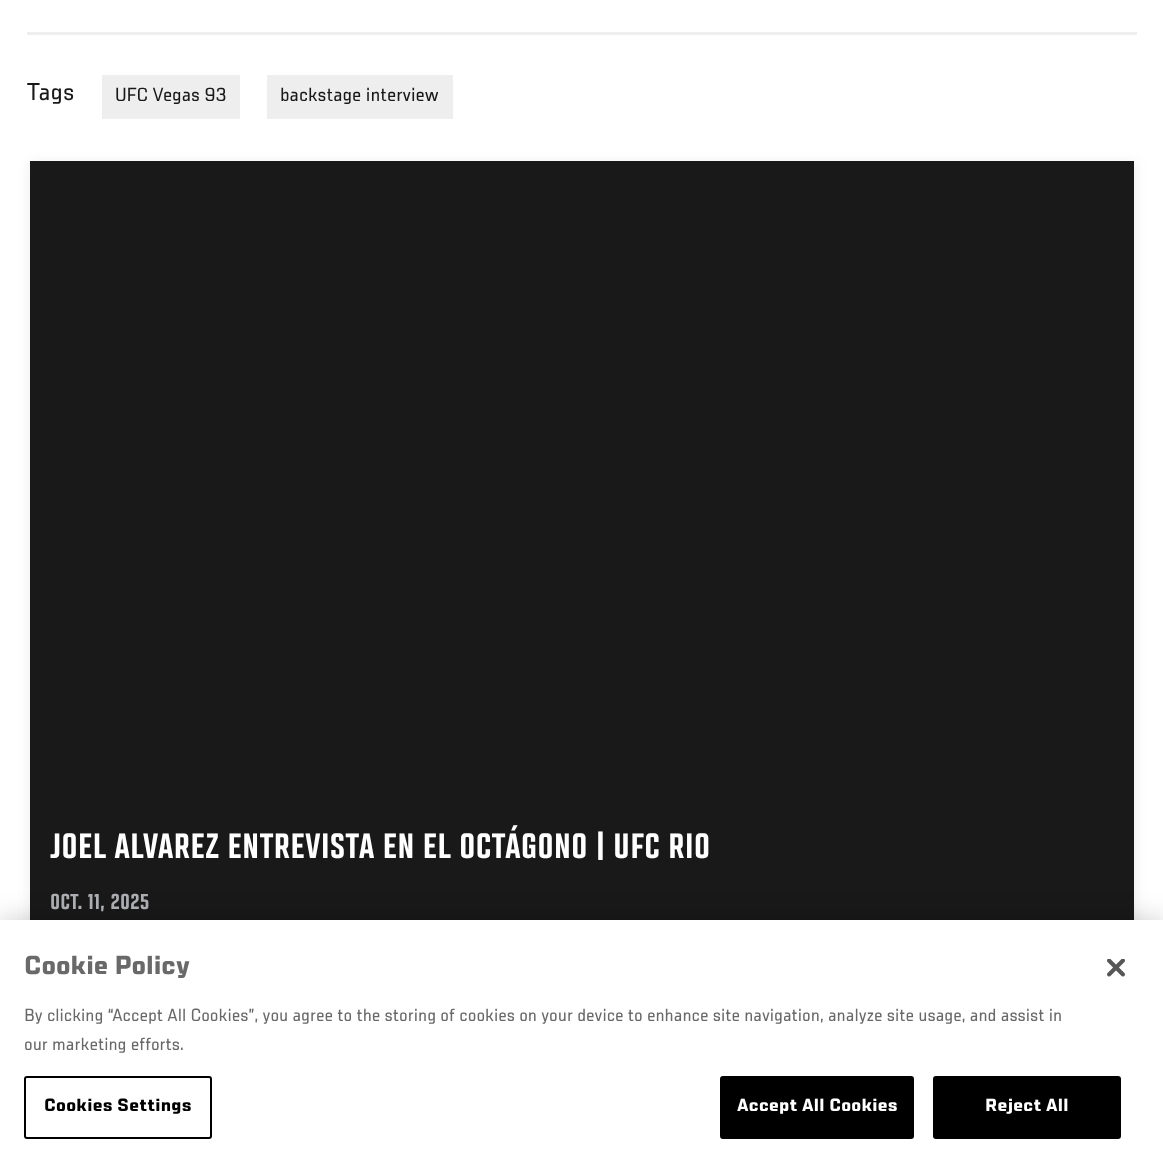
<svg xmlns="http://www.w3.org/2000/svg" xmlns:xlink="http://www.w3.org/1999/xlink" width="1163" height="1174" viewBox="0 0 1163 1174">
<style>
.cls-1{font:27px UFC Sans;fill:#191919}
.cls-2{font:21px UFC Sans;fill:#191919}
.cls-3{font:500 39px UFC Sans;fill:#ffffff}
.cls-4{font:500 24px UFC Sans;fill:#abadb1}
.cls-5{font:bold 28.75px UFC Sans;fill:#696969}
.cls-6{font:19.5px UFC Sans;fill:#696969}
.cls-7{font:bold 19.5px UFC Sans;letter-spacing:0.25px;fill:#000000}
.cls-8{font:bold 19.5px UFC Sans;letter-spacing:0.25px;fill:#ffffff}
</style>
<rect width="100%" height="100%" fill="#ffffff"/>
<rect fill="#eeeeef" x="27" y="32" width="1110" height="3"/>
<rect fill="#eeeeef" x="102" y="75" width="138" height="44"/>
<rect fill="#eeeeef" x="267" y="75" width="186" height="44"/>
<rect fill="#635b63" fill-opacity="0.1" filter="blur(6px)" x="29" y="162" width="1107" height="782"/>
<rect fill="#191919" x="30" y="161" width="1104" height="759"/>
<rect fill="#000000" fill-opacity="0.2" filter="blur(13.5px)" x="0" y="920" width="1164" height="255"/>
<rect fill="#ffffff" x="0" y="920" width="1163" height="254"/>
<rect fill="none" stroke="#000000" stroke-width="2" x="25" y="1077" width="186" height="61" rx="2"/>
<rect fill="#000000" stroke="#000000" stroke-width="2" x="721" y="1077" width="192" height="61" rx="2"/>
<rect fill="#000000" stroke="#000000" stroke-width="2" x="934" y="1077" width="186" height="61" rx="2"/>
<image xlink:href="image0.png" x="1107" y="959" width="18" height="18"/>
<text class="cls-1" x="27" y="100">Tags</text>
<text class="cls-2" x="115" y="101">UFC Vegas 93</text>
<text class="cls-2" x="280" y="101">backstage interview</text>
<text class="cls-3" x="50" y="858">JOEL ALVAREZ ENTREVISTA EN EL OCTÁGONO | UFC RIO</text>
<text class="cls-4" x="50" y="909">OCT. 11, 2025</text>
<text class="cls-5" x="24" y="974">Cookie Policy</text>
<text class="cls-6"><tspan x="24" y="1021">By clicking “Accept All Cookies”, you agree to the storing of cookies on your device to enhance site navigation, analyze site usage, and assist in</tspan><tspan x="24" y="1050">our marketing efforts.</tspan></text>
<text class="cls-7" x="44" y="1111">Cookies Settings</text>
<text class="cls-8" x="737" y="1111">Accept All Cookies</text>
<text class="cls-8" x="985" y="1111">Reject All</text>
</svg>
